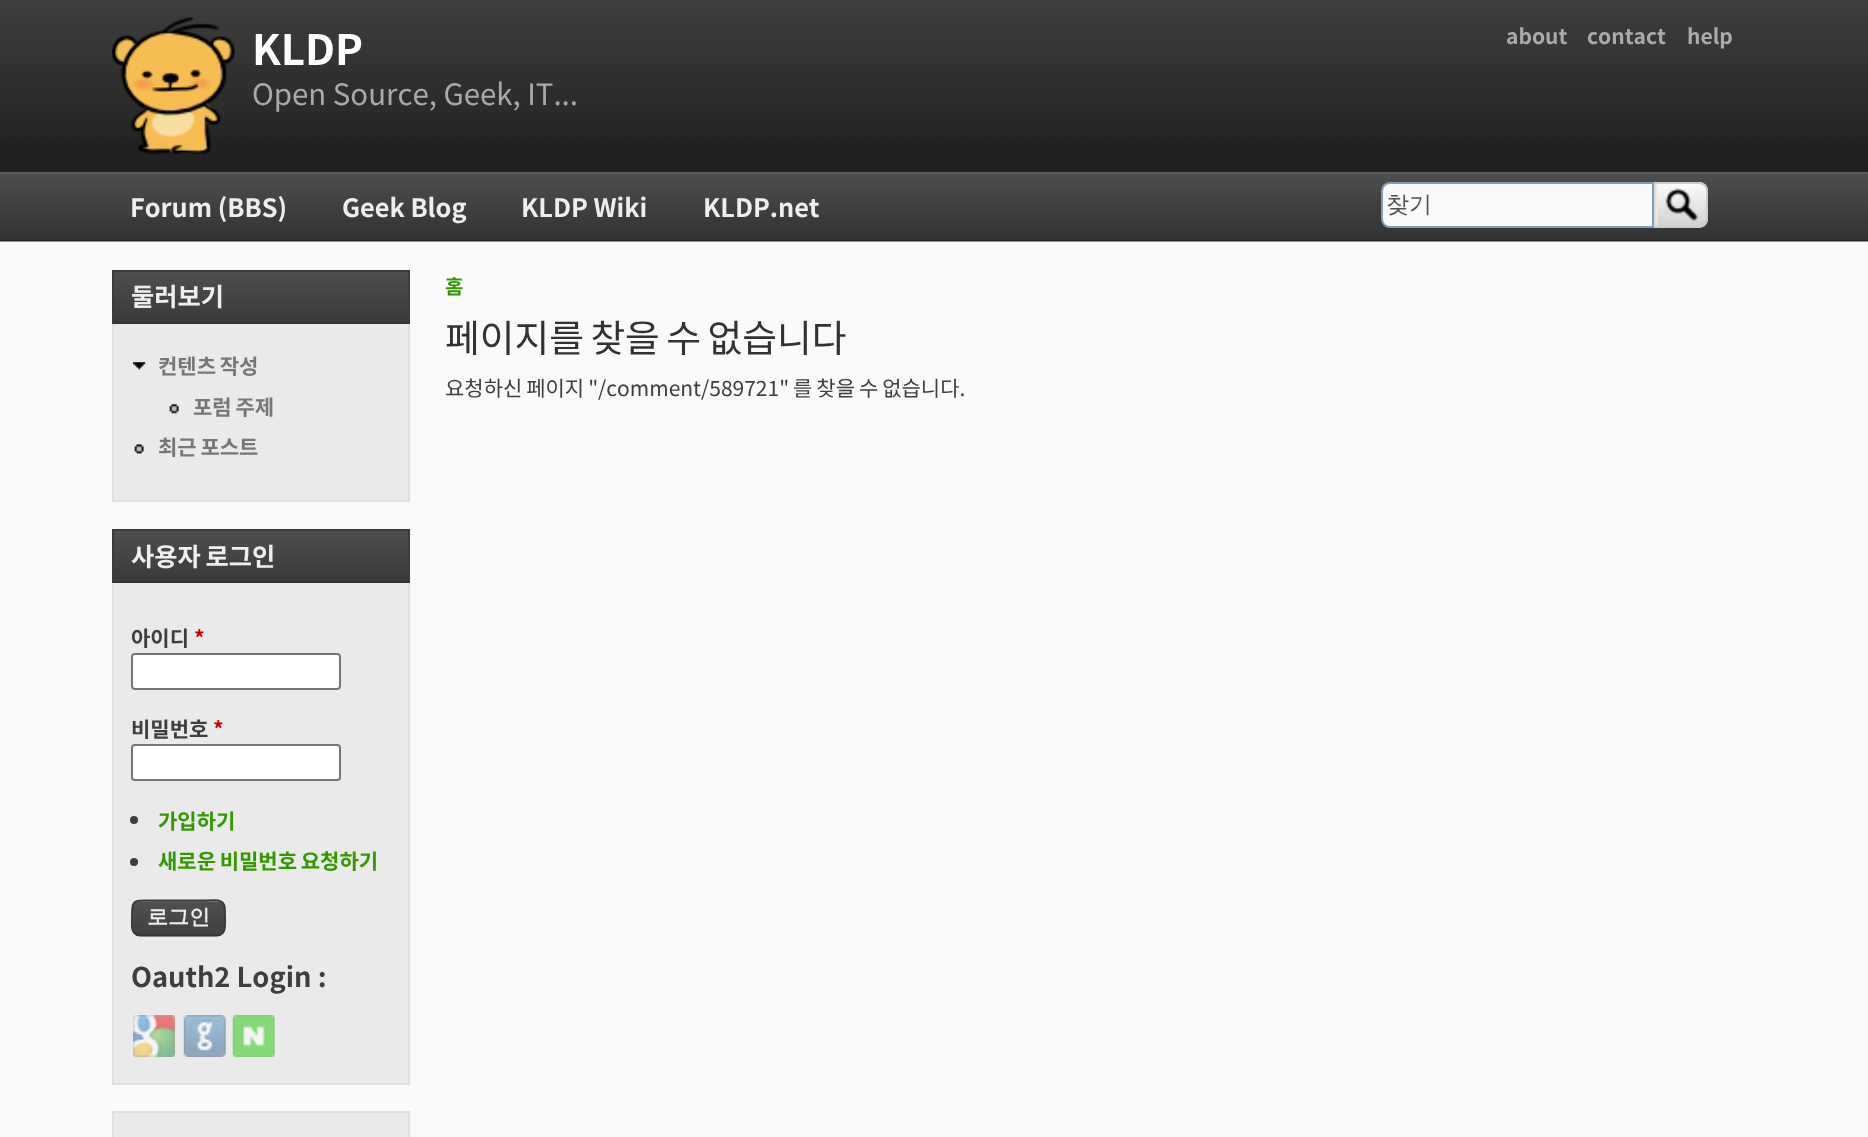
<svg xmlns="http://www.w3.org/2000/svg" xmlns:xlink="http://www.w3.org/1999/xlink" width="1868" height="1137" viewBox="0 0 1868 1137">
<style>*{font-kerning:none!important;font-variant-ligatures:none!important}</style>
<style>
.cls-1{font:bold 42px Noto Sans CJK KR;fill:#ffffff}
.cls-2{font:29.4px Noto Sans CJK KR;fill:#aaaaaa}
.cls-3{font:bold 21px Noto Sans CJK KR;fill:#aaaaaa}
.cls-4{font:bold 25.25px Noto Sans CJK KR;fill:#eeeeee}
.cls-5{font:500 23px WenQuanYi Zen Hei;fill:#4e4e4e}
.cls-6{font:bold 21px Noto Sans CJK KR;fill:#777777}
.cls-7{font:bold 21px Noto Sans CJK KR;fill:#3e3e3e}
.cls-8{font:bold 21px Noto Sans CJK KR;fill:#cc0000}
.cls-9{font:bold 21px Noto Sans CJK KR;fill:#339900}
.cls-10{font:bold 21px WenQuanYi Zen Hei;fill:#eeeeee}
.cls-11{font:bold 27.25px Noto Sans CJK KR;fill:#3e3e3e}
.cls-12{font:bold 20px Noto Sans CJK KR;fill:#339900}
.cls-13{font:37.75px Noto Sans CJK KR;fill:#323232}
.cls-14{font:21px Noto Sans CJK KR;fill:#3e3e3e}
</style>
<rect width="100%" height="100%" fill="#fafafa"/>
<rect fill="#212121" x="0" y="137" width="1868" height="35"/>
<image xlink:href="image0.png" x="0" y="0" width="1868" height="137"/>
<image xlink:href="image1.png" x="112" y="17" width="123" height="137"/>
<image xlink:href="image2.png" x="0" y="174" width="1868" height="68"/>
<rect fill="#5c5c5c" x="0" y="172" width="1868" height="2"/>
<path fill="#fafafa" stroke="#7e9db9" stroke-width="2" d="M1390 183H1653V227H1390C1385.5 227 1382 223.5 1382 219V191C1382 186.5 1385.5 183 1390 183Z"/>
<image xlink:href="image3.png" x="1653" y="182" width="55" height="46"/>
<path fill="#cccccc" fill-rule="evenodd" d="M1654 182H1699C1704 182 1708 186 1708 191V219C1708 224 1704 228 1699 228H1654ZM1654 184H1699C1703 184 1706 187 1706 191V219C1706 223 1703 226 1699 226H1654Z"/>
<rect fill="#eaeaea" x="114" y="324" width="294" height="176"/>
<rect fill="none" stroke="#e0e0e0" stroke-width="2" x="113" y="271" width="296" height="230"/>
<image xlink:href="image4.png" x="114" y="272" width="294" height="50"/>
<rect fill="#3c3c3c" x="112" y="270" width="298" height="2"/>
<rect fill="#3c3c3c" x="408" y="270" width="2" height="54"/>
<rect fill="#333333" x="112" y="322" width="298" height="2"/>
<rect fill="#3c3c3c" x="112" y="270" width="2" height="54"/>
<image xlink:href="image5.png" x="133" y="362" width="13" height="8"/>
<image xlink:href="image6.png" x="169" y="403" width="10" height="11"/>
<image xlink:href="image7.png" x="134" y="444" width="10" height="10"/>
<rect fill="#eaeaea" x="114" y="583" width="294" height="500"/>
<rect fill="none" stroke="#e0e0e0" stroke-width="2" x="113" y="530" width="296" height="554"/>
<image xlink:href="image4.png" x="114" y="531" width="294" height="50"/>
<rect fill="#3c3c3c" x="112" y="529" width="298" height="2"/>
<rect fill="#3c3c3c" x="408" y="529" width="2" height="54"/>
<rect fill="#333333" x="112" y="581" width="298" height="2"/>
<rect fill="#3c3c3c" x="112" y="529" width="2" height="54"/>
<rect fill="#ffffff" stroke="#767676" stroke-width="2" x="132" y="654" width="208" height="35" rx="3"/>
<rect fill="#ffffff" stroke="#767676" stroke-width="2" x="132" y="745" width="208" height="35" rx="3"/>
<circle fill="#3e3e3e" cx="134" cy="820" r="4"/>
<circle fill="#3e3e3e" cx="134" cy="862" r="4"/>
<image xlink:href="image8.png" x="131" y="901" width="95" height="36"/>
<path fill="none" stroke="#333333" stroke-width="1.8" d="M222.5 933C221 934.5 219 935.5 217 935.5H140C138 935.5 136 934.5 134.5 933"/>
<path fill="none" stroke="#3c3c3c" stroke-width="1.8" d="M134.5 933C130.5 929.5 132 922.5 132 918C132 898.5 133 900.5 153 900.5H204C210 900.5 223 897.5 224.5 906.5L225 914.5C225 919.5 226.5 929 222.5 933"/>
<image xlink:href="image9.png" x="133" y="1015" width="42" height="42"/>
<image xlink:href="image10.png" x="183" y="1015" width="43" height="42"/>
<image xlink:href="image11.png" x="232" y="1015" width="43" height="42"/>
<rect fill="#eaeaea" stroke="#e0e0e0" stroke-width="2" x="113" y="1112" width="296" height="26"/>
<text class="cls-1" x="252" y="65">KLDP</text>
<text class="cls-2" x="252" y="105">Open Source, Geek, IT...</text>
<text class="cls-3" x="1506" y="44">about</text>
<text class="cls-3" x="1587" y="44">contact</text>
<text class="cls-3" x="1687" y="44">help</text>
<text class="cls-4" x="130" y="217">Forum (BBS)</text>
<text class="cls-4" x="342" y="217">Geek Blog</text>
<text class="cls-4" x="521" y="217">KLDP Wiki</text>
<text class="cls-4" x="703" y="217">KLDP.net</text>
<text class="cls-5" x="1386" y="212">찾기</text>
<text class="cls-4" x="131" y="306">둘러보기</text>
<text class="cls-6" x="158" y="374" word-spacing="-1">컨텐츠 작성</text>
<text class="cls-6" x="193" y="415" word-spacing="-1">포럼 주제</text>
<text class="cls-6" x="158" y="455" word-spacing="-1">최근 포스트</text>
<text class="cls-4" x="131" y="566" word-spacing="-1">사용자 로그인</text>
<text class="cls-7" x="131" y="646">아이디</text>
<text class="cls-8" x="194" y="646">*</text>
<text class="cls-7" x="131" y="737">비밀번호</text>
<text class="cls-8" x="213" y="737">*</text>
<text class="cls-9"><tspan x="158" y="829">가입하기</tspan><tspan x="158" y="869" word-spacing="-1">새로운 비밀번호 요청하기</tspan></text>
<text class="cls-10" x="147" y="924">로그인</text>
<text class="cls-11" x="131" y="987">Oauth2 Login :</text>
<text class="cls-12" x="445" y="294">홈</text>
<text class="cls-13" x="445" y="352" word-spacing="-2">페이지를 찾을 수 없습니다</text>
<text class="cls-14" x="445" y="396" word-spacing="-0.75">요청하신 페이지 "/comment/589721" 를 찾을 수 없습니다.</text>
</svg>
